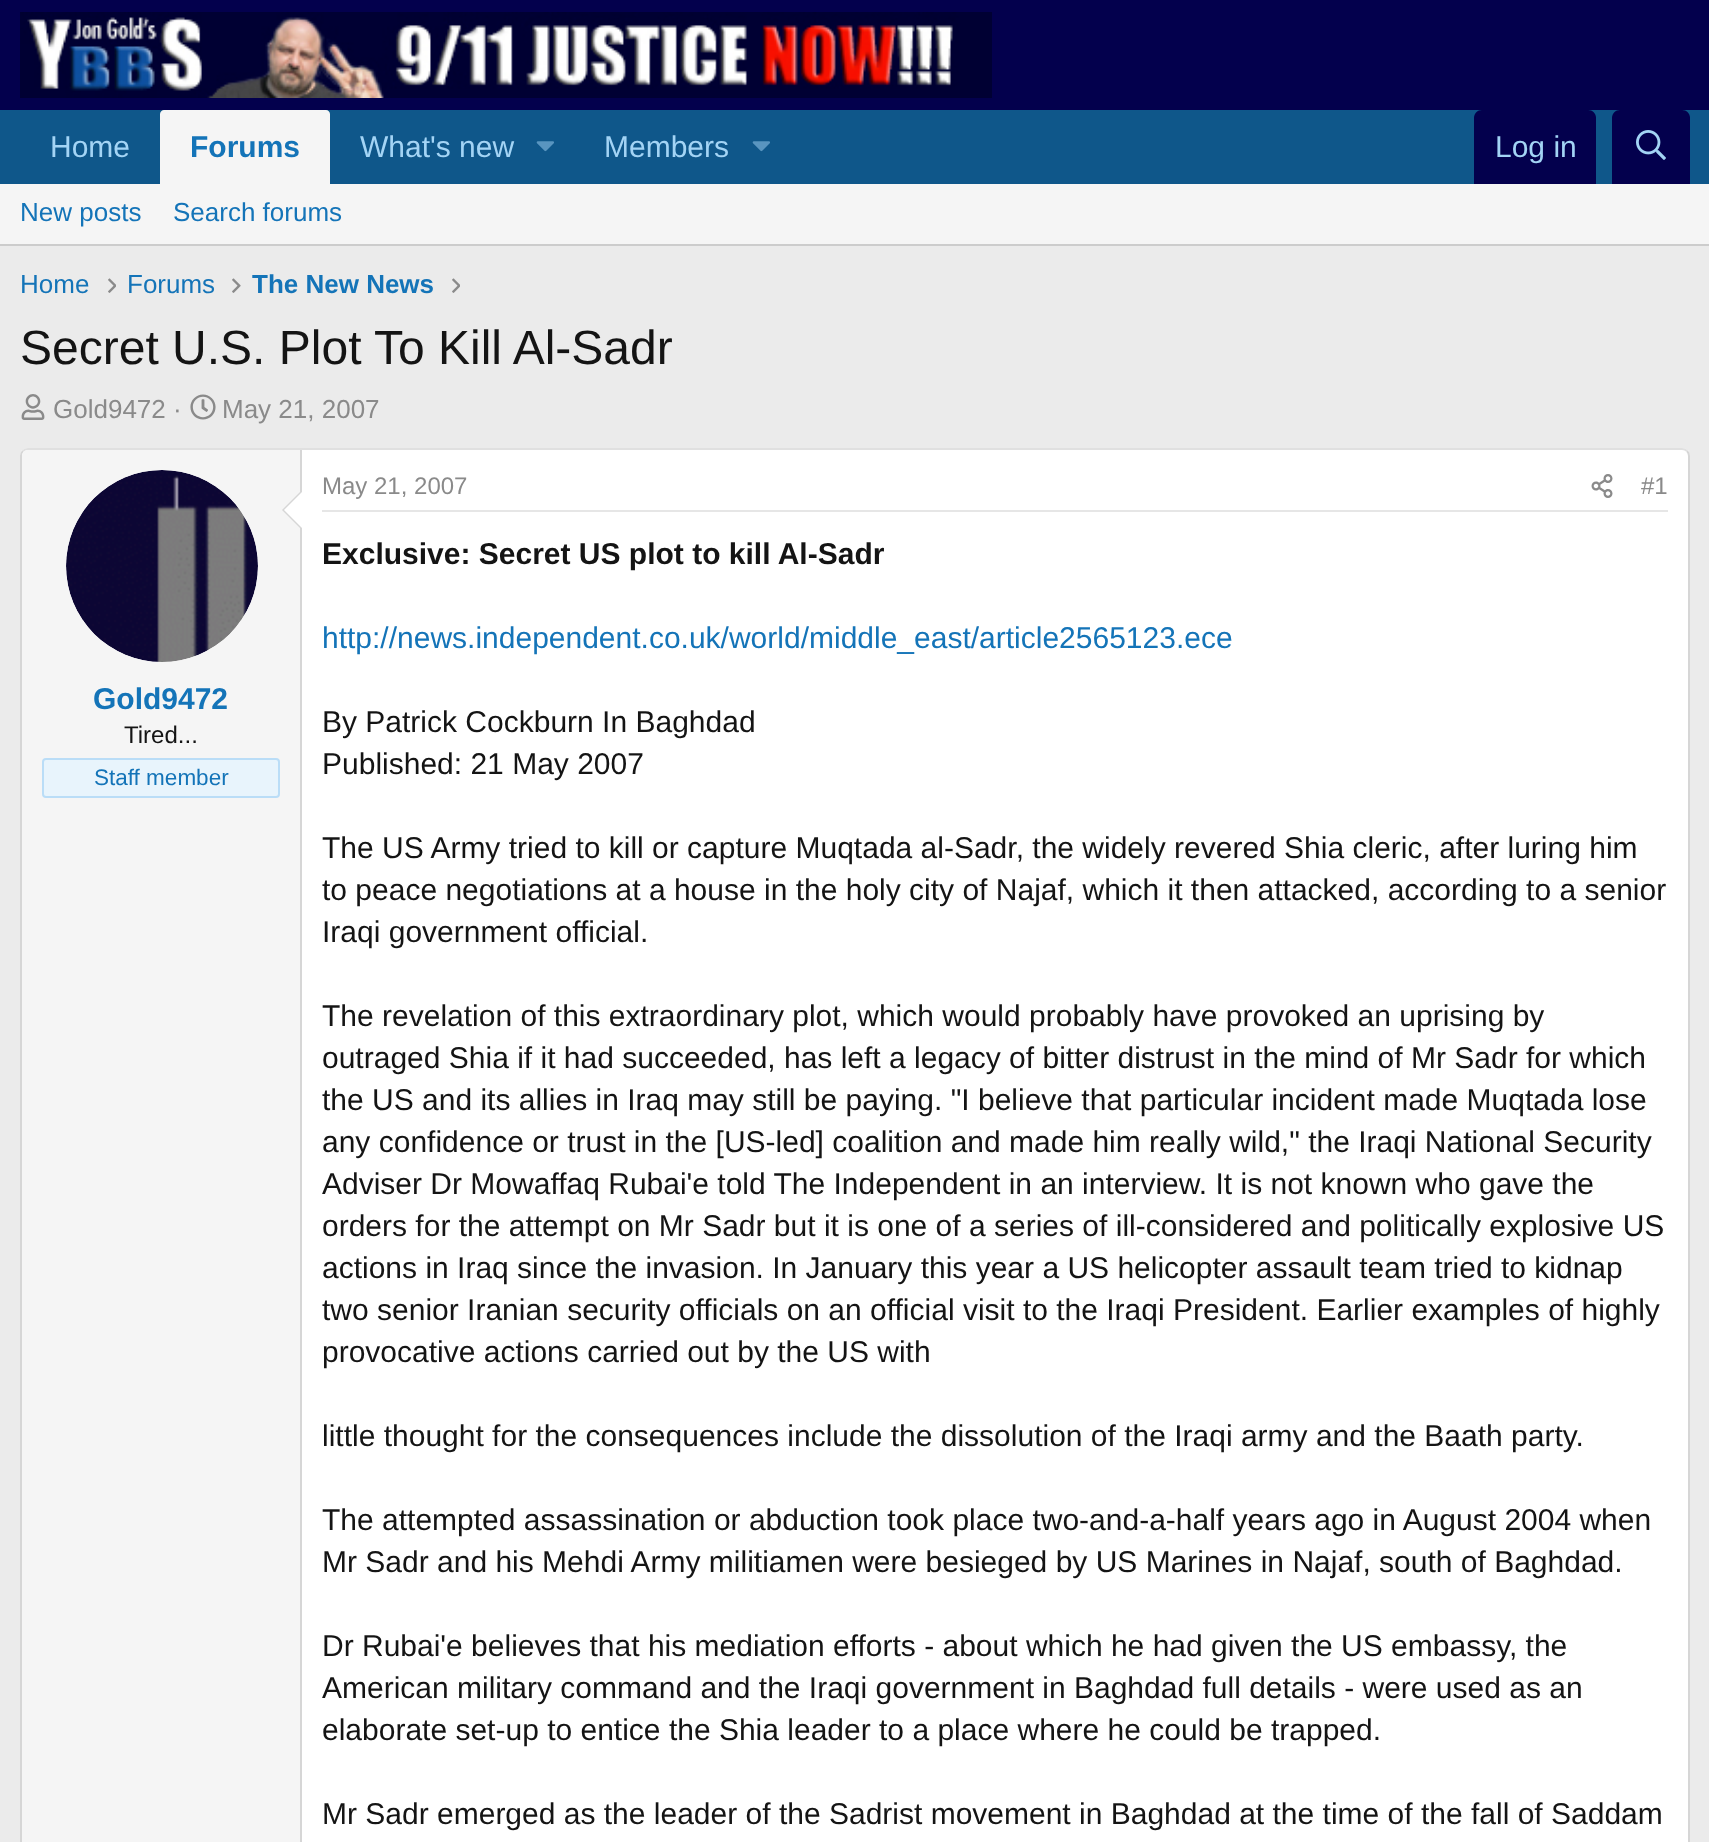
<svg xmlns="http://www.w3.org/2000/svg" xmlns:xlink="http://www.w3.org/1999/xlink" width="1709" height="1842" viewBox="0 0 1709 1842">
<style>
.cls-1{font:30px Liberation Sans;fill:#a3d4f5}
.cls-2{font:bold 30px Liberation Sans;fill:#1474b8}
.cls-3{font:26px Liberation Sans;fill:#1474b8}
.cls-4{font:bold 26px Liberation Sans;fill:#1474b8}
.cls-5{font:48px Liberation Sans;fill:#141414}
.cls-6{font:26px Liberation Sans;fill:#8a8a8a}
.cls-7{font:24px Liberation Sans;fill:#141414}
.cls-8{font:22.5px Liberation Sans;fill:#1474b8}
.cls-9{font:24px Liberation Sans;fill:#8a8a8a}
.cls-10{font:bold 30px Liberation Sans;fill:#141414}
.cls-11{font:30px Liberation Sans;fill:#1474b8}
.cls-12{font:30px Liberation Sans;fill:#141414}
</style>
<rect width="100%" height="100%" fill="#ebebeb"/>
<rect fill="#03004d" x="0" y="0" width="1709" height="110"/>
<image xlink:href="image0.png" x="20" y="12" width="972" height="86"/>
<rect fill="#0f578a" x="0" y="110" width="1709" height="74"/>
<path fill="#f5f5f5" d="M164 110H326C328 110 330 112 330 114V184H160V114C160 112 162 110 164 110Z"/>
<image xlink:href="image1.png" x="536" y="141" width="18" height="11"/>
<image xlink:href="image1.png" x="752" y="141" width="18" height="11"/>
<path fill="#03004d" d="M1482 110H1588C1592.5 110 1596 113.5 1596 118V184H1474V118C1474 113.5 1477.5 110 1482 110Z"/>
<path fill="#03004d" d="M1620 110H1682C1686.5 110 1690 113.5 1690 118V184H1612V118C1612 113.5 1615.5 110 1620 110Z"/>
<image xlink:href="image2.png" x="1636" y="130" width="30" height="30"/>
<rect fill="#f5f5f5" x="0" y="184" width="1709" height="60"/>
<rect fill="#cccccc" x="0" y="244" width="1709" height="2"/>
<image xlink:href="image3.png" x="108" y="278" width="8" height="15"/>
<image xlink:href="image4.png" x="232" y="278" width="9" height="15"/>
<image xlink:href="image3.png" x="452" y="278" width="8" height="15"/>
<image xlink:href="image5.png" x="21" y="394" width="24" height="26"/>
<image xlink:href="image6.png" x="190" y="394" width="26" height="26"/>
<rect fill="#ffffff" x="20" y="448" width="1670" height="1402" rx="8"/>
<path fill="none" stroke="#e0e0e0" stroke-width="2" d="M23 451C24.5 449.5 26 449 28 449H1682C1684 449 1685.5 449.5 1687 451"/>
<path fill="none" stroke="#d6d6d6" stroke-width="2" d="M1687 451C1688.5 452.5 1689 454 1689 456V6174C1689 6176 1688.5 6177.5 1687 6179"/>
<path fill="none" stroke="#d6d6d6" stroke-width="2" d="M23 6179C21.5 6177.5 21 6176 21 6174V456C21 454 21.5 452.5 23 451"/>
<path fill="#f5f5f5" d="M28 450H302V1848H28C24.5 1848 22 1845.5 22 1842V456C22 452.5 24.5 450 28 450Z"/>
<rect fill="#d6d6d6" x="300" y="450" width="2" height="1392"/>
<circle fill="#ffffff" cx="162" cy="566" r="96"/>
<image xlink:href="image7.png" x="66" y="470" width="192" height="192"/>
<path fill="#d6d6d6" d="M302 490V530L282 510Z"/>
<path fill="#ffffff" d="M302 492V528L284 510Z"/>
<rect fill="#e8f4fc" stroke="#baddf7" stroke-width="2" x="43" y="759" width="236" height="38" rx="3"/>
<rect fill="#e6e6e6" x="322" y="510" width="1346" height="2"/>
<image xlink:href="image8.png" x="1591" y="474" width="22" height="24"/>
<text class="cls-1" x="50" y="157">Home</text>
<text class="cls-2" x="190" y="157">Forums</text>
<text class="cls-1" x="360" y="157">What's new</text>
<text class="cls-1" x="604" y="157">Members</text>
<text class="cls-1" x="1495" y="157">Log in</text>
<text class="cls-3" x="20" y="221">New posts</text>
<text class="cls-3" x="173" y="221">Search forums</text>
<text class="cls-3" x="20" y="293">Home</text>
<text class="cls-3" x="127" y="293">Forums</text>
<text class="cls-4" x="252" y="293">The New News</text>
<text class="cls-5" x="20" y="364">Secret U.S. Plot To Kill Al-Sadr</text>
<text class="cls-6" x="53" y="418">Gold9472 ·</text>
<text class="cls-6" x="222" y="418">May 21, 2007</text>
<text class="cls-2" x="93" y="709">Gold9472</text>
<text class="cls-7" x="124" y="743">Tired...</text>
<text class="cls-8" x="94" y="785">Staff member</text>
<text class="cls-9" x="322" y="494">May 21, 2007</text>
<text class="cls-9" x="1641" y="494">#1</text>
<text class="cls-10" x="322" y="564">Exclusive: Secret US plot to kill Al-Sadr</text>
<text class="cls-11" x="322" y="648">http://news.independent.co.uk/world/middle_east/article2565123.ece</text>
<text class="cls-12"><tspan x="322" y="732">By Patrick Cockburn In Baghdad</tspan><tspan x="322" y="774">Published: 21 May 2007</tspan></text>
<text class="cls-12"><tspan x="322" y="858">The US Army tried to kill or capture Muqtada al-Sadr, the widely revered Shia cleric, after luring him</tspan><tspan x="322" y="900">to peace negotiations at a house in the holy city of Najaf, which it then attacked, according to a senior</tspan><tspan x="322" y="942">Iraqi government official.</tspan></text>
<text class="cls-12"><tspan x="322" y="1026">The revelation of this extraordinary plot, which would probably have provoked an uprising by</tspan><tspan x="322" y="1068">outraged Shia if it had succeeded, has left a legacy of bitter distrust in the mind of Mr Sadr for which</tspan><tspan x="322" y="1110">the US and its allies in Iraq may still be paying. "I believe that particular incident made Muqtada lose</tspan><tspan x="322" y="1152">any confidence or trust in the [US-led] coalition and made him really wild," the Iraqi National Security</tspan><tspan x="322" y="1194">Adviser Dr Mowaffaq Rubai'e told The Independent in an interview. It is not known who gave the</tspan><tspan x="322" y="1236">orders for the attempt on Mr Sadr but it is one of a series of ill-considered and politically explosive US</tspan><tspan x="322" y="1278">actions in Iraq since the invasion. In January this year a US helicopter assault team tried to kidnap</tspan><tspan x="322" y="1320">two senior Iranian security officials on an official visit to the Iraqi President. Earlier examples of highly</tspan><tspan x="322" y="1362">provocative actions carried out by the US with</tspan></text>
<text class="cls-12" x="322" y="1446">little thought for the consequences include the dissolution of the Iraqi army and the Baath party.</text>
<text class="cls-12"><tspan x="322" y="1530">The attempted assassination or abduction took place two-and-a-half years ago in August 2004 when</tspan><tspan x="322" y="1572">Mr Sadr and his Mehdi Army militiamen were besieged by US Marines in Najaf, south of Baghdad.</tspan></text>
<text class="cls-12"><tspan x="322" y="1656">Dr Rubai'e believes that his mediation efforts - about which he had given the US embassy, the</tspan><tspan x="322" y="1698">American military command and the Iraqi government in Baghdad full details - were used as an</tspan><tspan x="322" y="1740">elaborate set-up to entice the Shia leader to a place where he could be trapped.</tspan></text>
<text class="cls-12" x="322" y="1824">Mr Sadr emerged as the leader of the Sadrist movement in Baghdad at the time of the fall of Saddam</text>
</svg>
